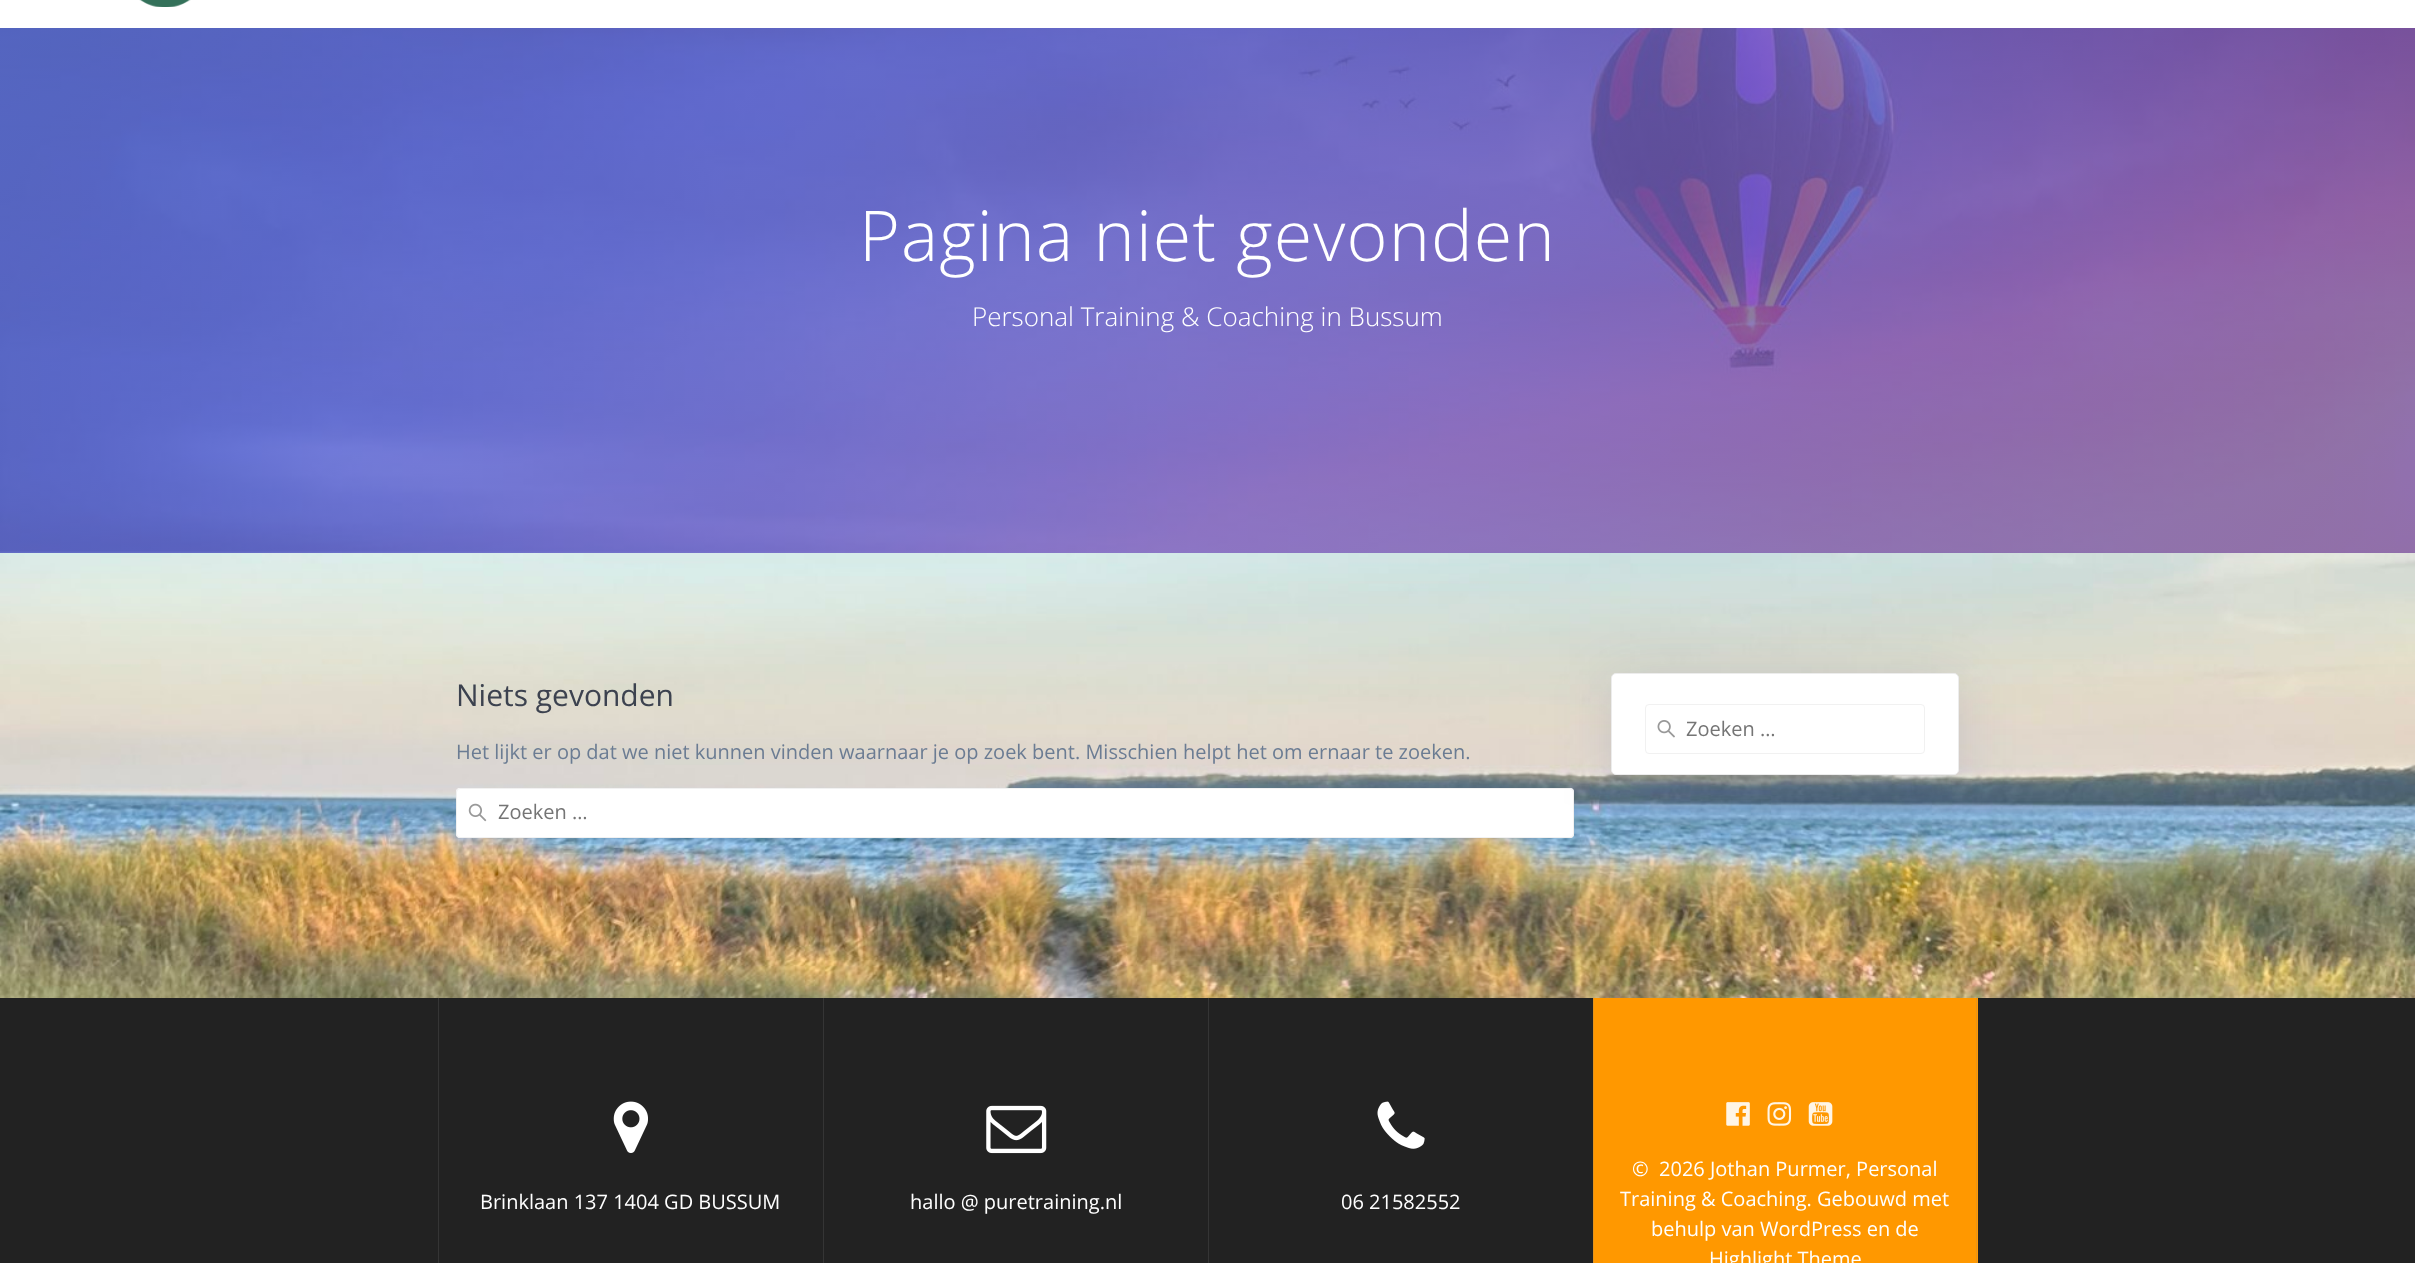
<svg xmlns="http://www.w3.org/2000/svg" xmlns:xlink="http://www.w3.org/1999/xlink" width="2415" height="1263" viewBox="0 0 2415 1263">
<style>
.cls-1{font:300 70px Open Sans;letter-spacing:1.1px;fill:#ffffff}
.cls-2{font:300 26px Open Sans;fill:#ffffff}
.cls-3{font:30px Open Sans;fill:#3c424f}
.cls-4{font:20px Open Sans;fill:#6b7c93}
.cls-5{font:20px Open Sans;fill:#757575}
.cls-6{font:20px Open Sans;fill:#ffffff}
</style>
<defs>
<linearGradient id="g1" gradientUnits="userSpaceOnUse" x1="441" y1="-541" x2="1974" y2="993"><stop offset="0" stop-color="#667eea" stop-opacity="0.8"/><stop offset="1" stop-color="#764ba2" stop-opacity="0.8"/></linearGradient>
</defs>
<rect width="100%" height="100%" fill="#ffffff"/>
<image xlink:href="image0.png" x="0" y="551" width="2415" height="447"/>
<image xlink:href="image1.png" x="139" y="0" width="52" height="7"/>
<image xlink:href="image2.png" x="0" y="28" width="2415" height="525"/>
<rect fill="url(#g1)" x="0" y="28" width="2415" height="525"/>
<rect fill="#ffffff" x="456" y="788" width="1118" height="50" rx="4"/>
<image xlink:href="image3.png" x="468" y="803" width="19" height="19"/>
<rect fill="none" stroke="#f1f1f1" x="456.5" y="788.5" width="1117" height="49" rx="3.5"/>
<rect fill="#234598" fill-opacity="0.15" filter="blur(28px)" x="1611" y="684" width="348" height="102" rx="5"/>
<rect fill="#ffffff" stroke="#ececec" x="1611.5" y="673.5" width="347" height="101" rx="4.5"/>
<image xlink:href="image4.png" x="1657" y="720" width="18" height="18"/>
<rect fill="none" stroke="#f1f1f1" x="1645.5" y="704.5" width="279" height="49" rx="3.5"/>
<rect fill="#222222" x="0" y="998" width="2415" height="265"/>
<rect fill="#353535" x="438" y="998" width="1" height="265"/>
<image xlink:href="image5.png" x="613" y="1101" width="35" height="52"/>
<rect fill="#353535" x="823" y="998" width="1" height="265"/>
<image xlink:href="image6.png" x="986" y="1105" width="61" height="49"/>
<rect fill="#353535" x="1208" y="998" width="1" height="265"/>
<image xlink:href="image7.png" x="1377" y="1101" width="48" height="48"/>
<rect fill="#ff9800" x="1594" y="998" width="384" height="265"/>
<rect fill="#e6931a" x="1976" y="998" width="1" height="265"/>
<rect fill="#e6931a" x="1593" y="998" width="1" height="265"/>
<image xlink:href="image8.png" x="1726" y="1102" width="24" height="24"/>
<image xlink:href="image9.png" x="1767" y="1102" width="25" height="24"/>
<image xlink:href="image10.png" x="1808" y="1102" width="25" height="24"/>
<text class="cls-1" x="859" y="261">Pagina niet gevonden</text>
<text class="cls-2" x="972" y="326">Personal Training &amp; Coaching in Bussum</text>
<text class="cls-3" x="456" y="706">Niets gevonden</text>
<text class="cls-4" x="456" y="759">Het lijkt er op dat we niet kunnen vinden waarnaar je op zoek bent. Misschien helpt het om ernaar te zoeken.</text>
<text class="cls-5" x="498" y="819">Zoeken …</text>
<text class="cls-5" x="1686" y="736">Zoeken …</text>
<text class="cls-6" x="480" y="1209">Brinklaan 137 1404 GD BUSSUM</text>
<text class="cls-6" x="910" y="1209">hallo @ puretraining.nl</text>
<text class="cls-6" x="1341" y="1209">06 21582552</text>
<text class="cls-6" xml:space="preserve" x="1632" y="1176">©  2026 Jothan Purmer, Personal</text>
<text class="cls-6" x="1620" y="1206">Training &amp; Coaching. Gebouwd met</text>
<text class="cls-6" x="1651" y="1236">behulp van WordPress en de</text>
<text class="cls-6" x="1709" y="1266">Highlight Theme</text>
</svg>
